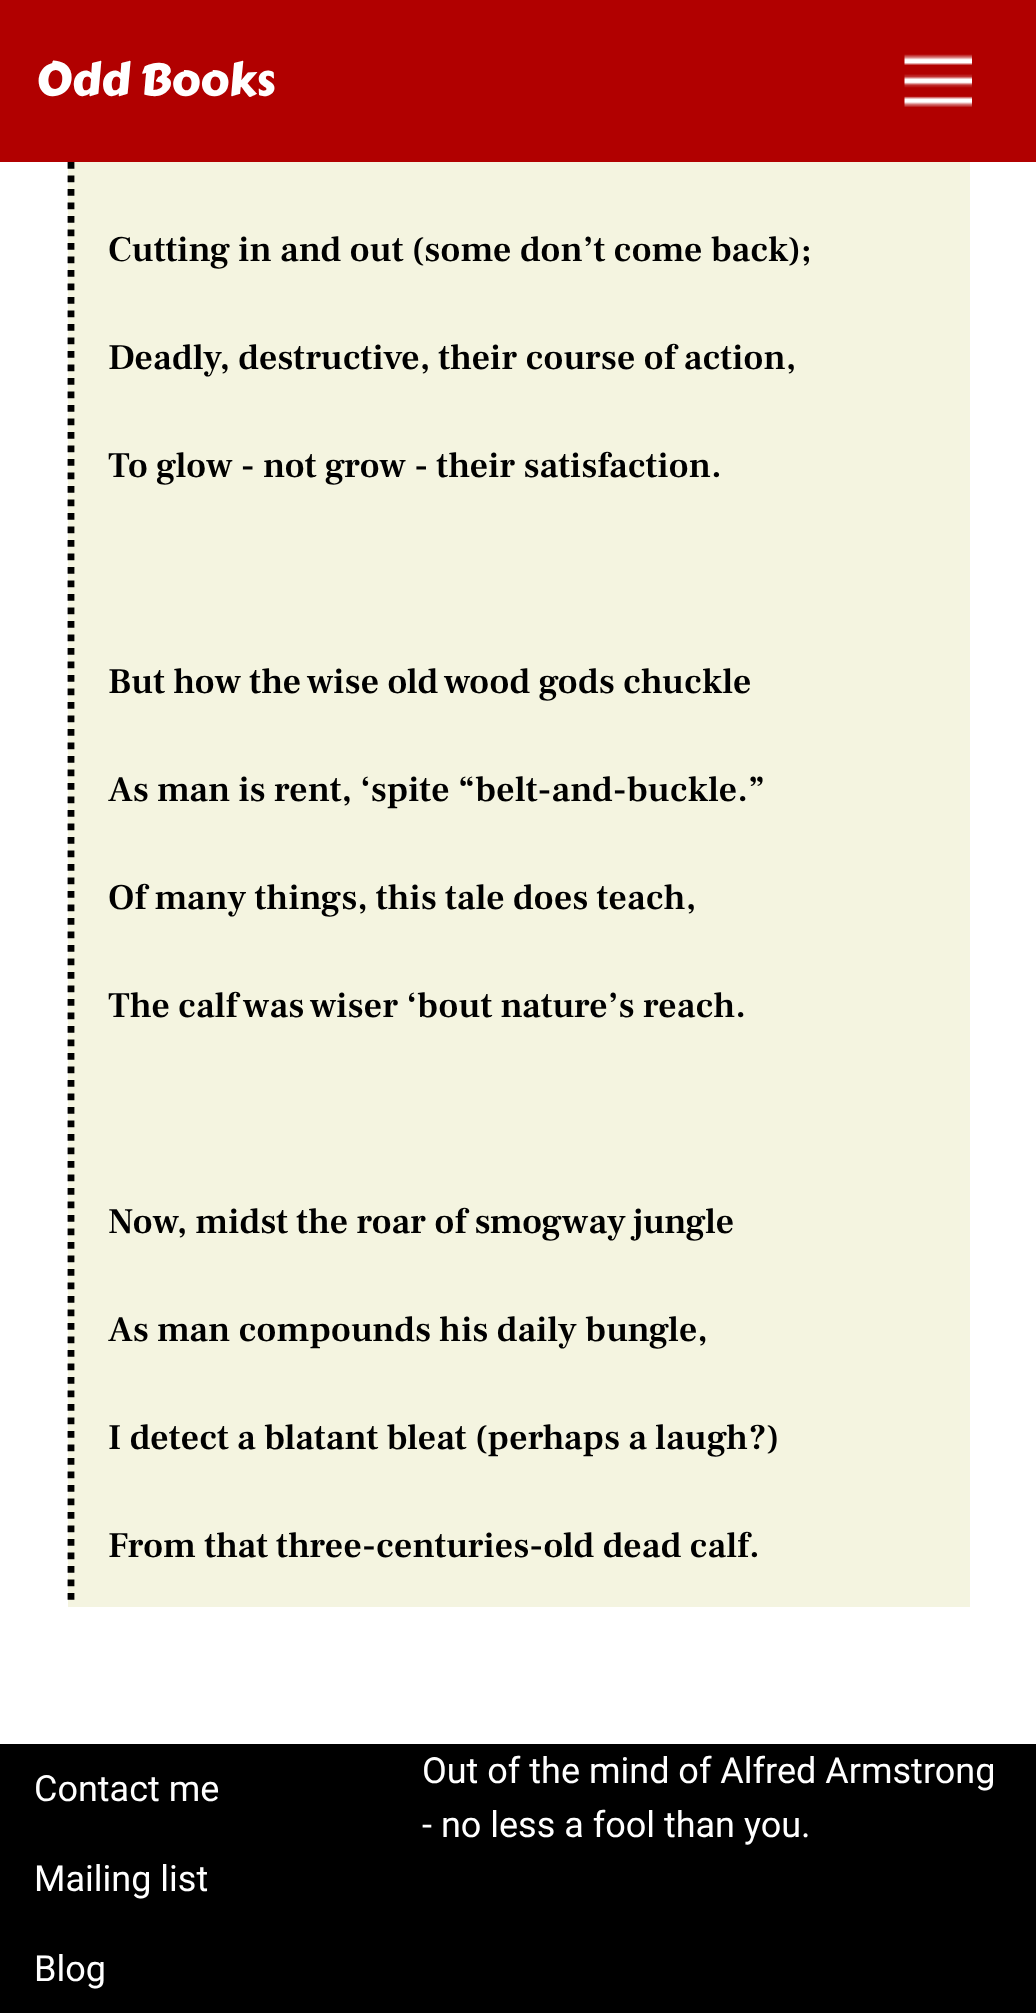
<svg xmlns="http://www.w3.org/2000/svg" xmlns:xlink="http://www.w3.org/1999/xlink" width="1036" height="2013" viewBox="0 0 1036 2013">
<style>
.cls-1{font:45px Carter One;fill:#ffffff}
.cls-2{font:600 36px Frank Ruhl Libre;fill:#000000}
.cls-3{font:36px Roboto;fill:#ffffff}
</style>
<rect width="100%" height="100%" fill="#ffffff"/>
<rect fill="#f4f4e0" x="68" y="162" width="902" height="1445"/>
<path fill="none" stroke="#000000" stroke-width="6.8" stroke-dasharray="6.75 6.75" d="M71-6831V1606.5"/>
<rect fill="#b10000" x="0" y="0" width="1036" height="162"/>
<image xlink:href="image0.png" x="904" y="54" width="68" height="53"/>
<rect fill="#000000" x="0" y="1744" width="1036" height="269"/>
<text class="cls-1" x="36" y="95">Odd Books</text>
<text class="cls-2" x="108" y="261">Cutting in and out (some don’t come back);</text>
<text class="cls-2" x="108" y="369">Deadly, destructive, their course of action,</text>
<text class="cls-2" x="108" y="477">To glow - not grow - their satisfaction.</text>
<text class="cls-2" x="108" y="693">But how the wise old wood gods chuckle</text>
<text class="cls-2" x="108" y="801">As man is rent, ‘spite “belt-and-buckle.”</text>
<text class="cls-2" x="108" y="909">Of many things, this tale does teach,</text>
<text class="cls-2" x="108" y="1017">The calf was wiser ‘bout nature’s reach.</text>
<text class="cls-2" x="108" y="1233">Now, midst the roar of smogway jungle</text>
<text class="cls-2" x="108" y="1341">As man compounds his daily bungle,</text>
<text class="cls-2" x="108" y="1449">I detect a blatant bleat (perhaps a laugh?)</text>
<text class="cls-2" x="108" y="1557">From that three-centuries-old dead calf.</text>
<text class="cls-3" x="34" y="1801">Contact me</text>
<text class="cls-3" x="34" y="1891">Mailing list</text>
<text class="cls-3" x="34" y="1981">Blog</text>
<text class="cls-3"><tspan x="422" y="1783">Out of the mind of Alfred Armstrong</tspan><tspan x="422" y="1837">- no less a fool than you.</tspan></text>
</svg>
